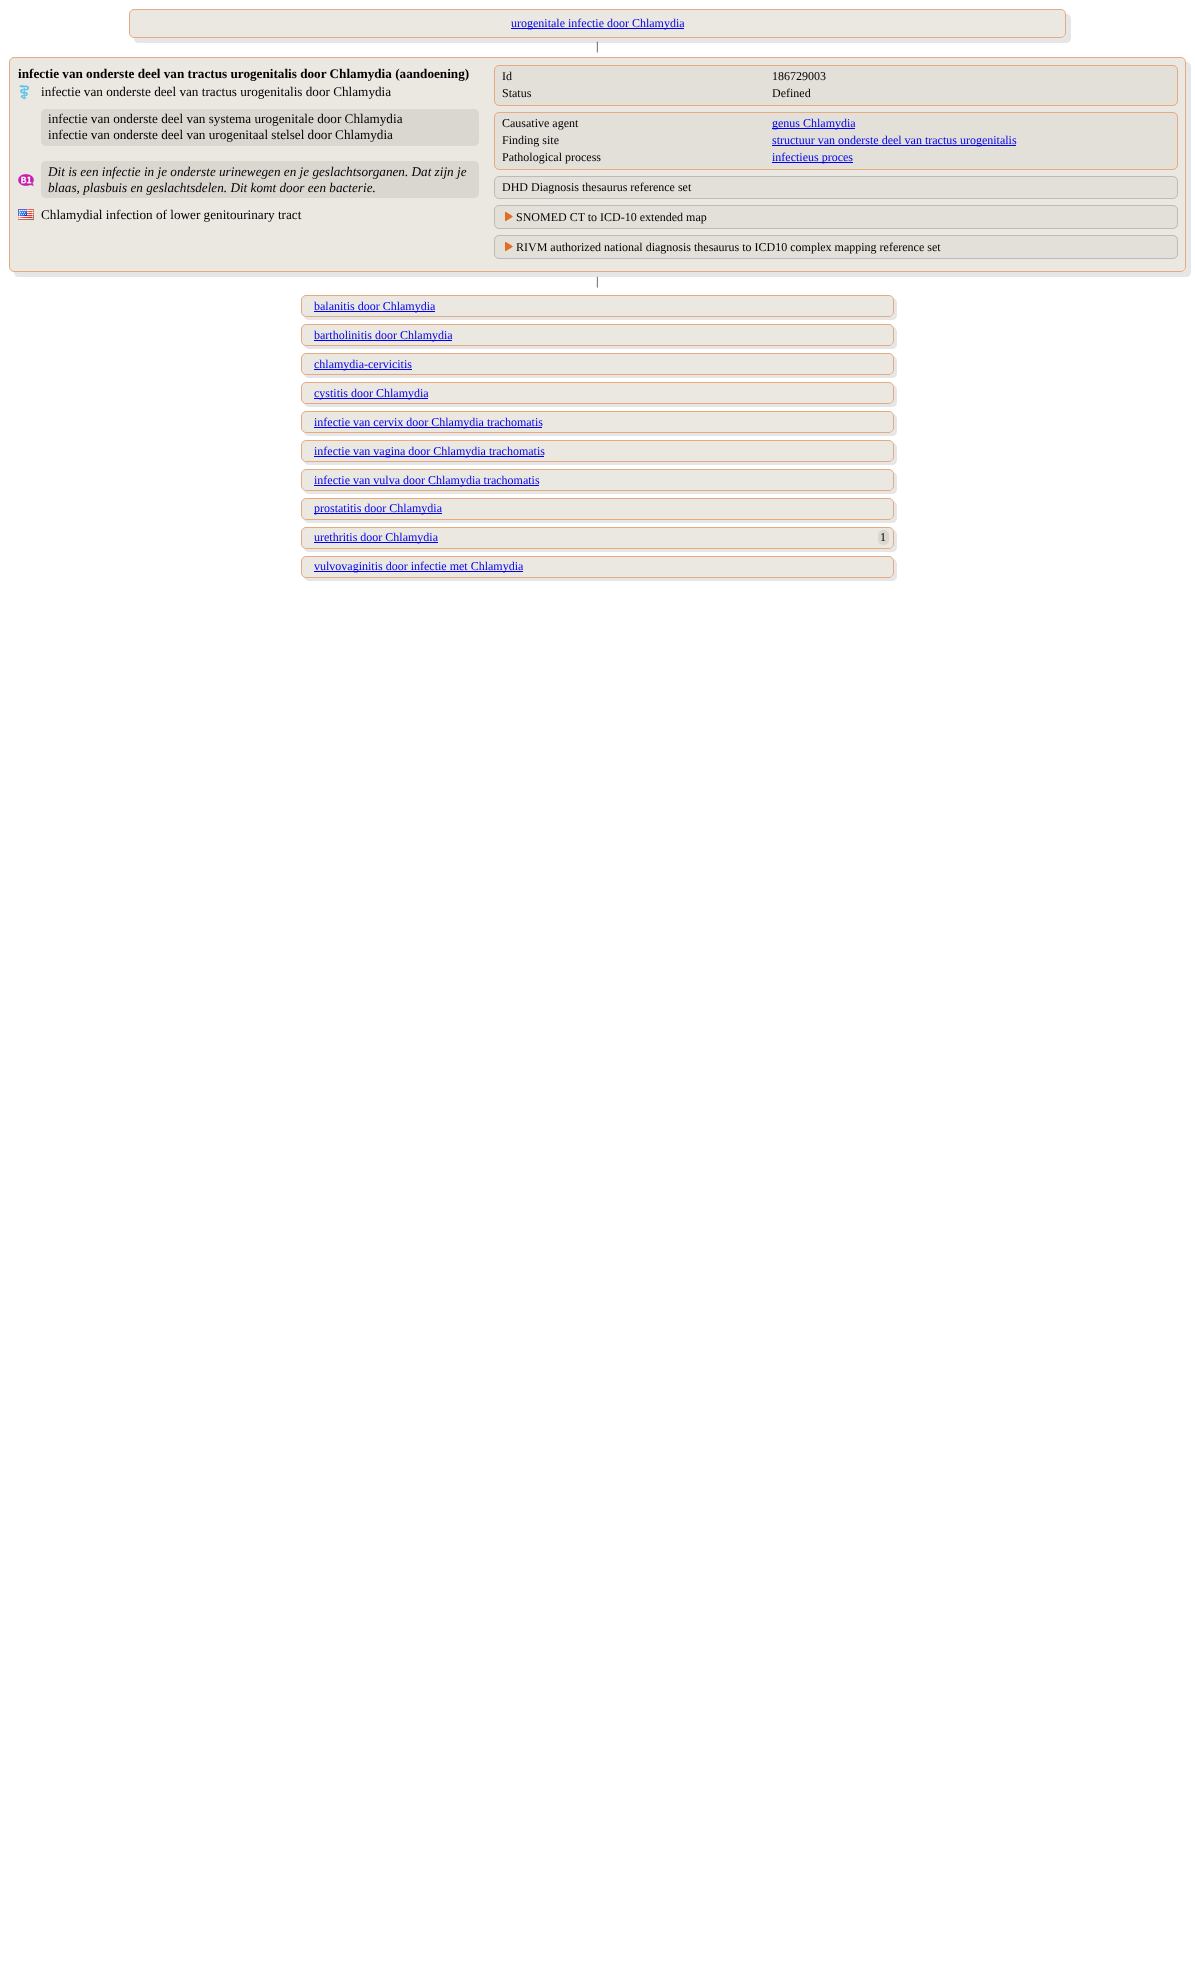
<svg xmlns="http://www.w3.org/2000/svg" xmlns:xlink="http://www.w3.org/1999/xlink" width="1195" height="1980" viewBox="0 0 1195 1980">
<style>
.cls-1{font:12px Liberation Serif;fill:#0000ee}
.cls-2{font:12px Liberation Serif;fill:#000000}
.cls-3{font:bold 13.2px Liberation Serif;fill:#000000}
.cls-4{font:13.2px Liberation Serif;fill:#000000}
.cls-5{font:italic 13.2px Liberation Serif;fill:#000000}
</style>
<rect width="100%" height="100%" fill="#ffffff"/>
<path fill="#e6e6e6" d="M134 38C134 41 136 43 139 43H1066C1069 43 1071 41 1071 38V19C1071 16 1069 14 1066 14V33C1066 36 1064 38 1061 38Z"/>
<rect fill="#ebe7e1" stroke="#e6aa83" x="129.5" y="9.5" width="936" height="28" rx="4.5"/>
<rect fill="#0000ee" x="511" y="28" width="173" height="1"/>
<path fill="#e6e6e6" d="M14 272C14 275 16 277 19 277H1186C1189 277 1191 275 1191 272V67C1191 64 1189 62 1186 62V267C1186 270 1184 272 1181 272Z"/>
<rect fill="#ebe7e1" stroke="#e6aa83" x="9.5" y="57.5" width="1176" height="214" rx="4.5"/>
<image xlink:href="image0.png" x="19" y="85" width="10" height="15"/>
<rect fill="#dad6d0" x="41" y="109" width="438" height="37" rx="5"/>
<image xlink:href="image1.png" x="18" y="174" width="16" height="12"/>
<rect fill="#dad6d0" x="41" y="161" width="438" height="37" rx="5"/>
<image xlink:href="image2.png" x="18" y="209" width="16" height="11"/>
<rect fill="#e3dfd9" stroke="#e6aa83" x="494.5" y="65.5" width="683" height="40" rx="4.5"/>
<rect fill="#e3dfd9" stroke="#e6aa83" x="494.5" y="112.5" width="683" height="57" rx="4.5"/>
<rect fill="#0000ee" x="772" y="128" width="83" height="1"/>
<rect fill="#0000ee" x="772" y="145" width="244" height="1"/>
<rect fill="#0000ee" x="772" y="162" width="81" height="1"/>
<rect fill="#e3dfd9" stroke="#bbbbbb" x="494.5" y="176.5" width="683" height="22" rx="4.5"/>
<rect fill="#e3dfd9" stroke="#bbbbbb" x="494.5" y="205.5" width="683" height="23" rx="4.5"/>
<image xlink:href="image3.png" x="505" y="212" width="8" height="9"/>
<rect fill="#e3dfd9" stroke="#bbbbbb" x="494.5" y="235.5" width="683" height="23" rx="4.5"/>
<image xlink:href="image3.png" x="505" y="242" width="8" height="9"/>
<path fill="#e6e6e6" d="M304 317C305 319 307 320 309 320H892C895 320 897 318 897 315V303C897 301 896 299 894 298V306C894 310 895 317 889 317Z"/>
<rect fill="#ebe7e1" stroke="#e6aa83" x="301.5" y="295.5" width="592" height="21" rx="4.5"/>
<rect fill="#0000ee" x="314" y="311" width="121" height="1"/>
<path fill="#e6e6e6" d="M304 346C305 348 307 349 309 349H892C895 349 897 347 897 344V332C897 330 896 328 894 327V335C894 339 895 346 889 346Z"/>
<rect fill="#ebe7e1" stroke="#e6aa83" x="301.5" y="324.5" width="592" height="21" rx="4.5"/>
<rect fill="#0000ee" x="314" y="340" width="138" height="1"/>
<path fill="#e6e6e6" d="M304 375C305 377 307 378 309 378H892C895 378 897 376 897 373V361C897 359 896 357 894 356V364C894 368 895 375 889 375Z"/>
<rect fill="#ebe7e1" stroke="#e6aa83" x="301.5" y="353.5" width="592" height="21" rx="4.5"/>
<rect fill="#0000ee" x="314" y="369" width="98" height="1"/>
<path fill="#e6e6e6" d="M304 404C305 406 307 407 309 407H892C895 407 897 405 897 402V390C897 388 896 386 894 385V393C894 397 895 404 889 404Z"/>
<rect fill="#ebe7e1" stroke="#e6aa83" x="301.5" y="382.5" width="592" height="21" rx="4.5"/>
<rect fill="#0000ee" x="314" y="398" width="114" height="1"/>
<path fill="#e6e6e6" d="M304 433C305 435 307 436 309 436H892C895 436 897 434 897 431V419C897 417 896 415 894 414V422C894 426 895 433 889 433Z"/>
<rect fill="#ebe7e1" stroke="#e6aa83" x="301.5" y="411.5" width="592" height="21" rx="4.5"/>
<rect fill="#0000ee" x="314" y="427" width="228" height="1"/>
<path fill="#e6e6e6" d="M304 462C305 464 307 465 309 465H892C895 465 897 463 897 460V448C897 446 896 444 894 443V451C894 455 895 462 889 462Z"/>
<rect fill="#ebe7e1" stroke="#e6aa83" x="301.5" y="440.5" width="592" height="21" rx="4.5"/>
<rect fill="#0000ee" x="314" y="456" width="230" height="1"/>
<path fill="#e6e6e6" d="M304 491C305 493 307 494 309 494H892C895 494 897 492 897 489V477C897 475 896 473 894 472V480C894 484 895 491 889 491Z"/>
<rect fill="#ebe7e1" stroke="#e6aa83" x="301.5" y="469.5" width="592" height="21" rx="4.5"/>
<rect fill="#0000ee" x="314" y="485" width="225" height="1"/>
<path fill="#e6e6e6" d="M304 520C305 522 307 523 309 523H892C895 523 897 521 897 518V506C897 504 896 502 894 501V509C894 513 895 520 889 520Z"/>
<rect fill="#ebe7e1" stroke="#e6aa83" x="301.5" y="498.5" width="592" height="21" rx="4.5"/>
<rect fill="#0000ee" x="314" y="513" width="128" height="1"/>
<path fill="#e6e6e6" d="M304 549C305 551 307 552 309 552H892C895 552 897 550 897 547V535C897 533 896 531 894 530V538C894 542 895 549 889 549Z"/>
<rect fill="#ebe7e1" stroke="#e6aa83" x="301.5" y="527.5" width="592" height="21" rx="4.5"/>
<rect fill="#0000ee" x="314" y="542" width="124" height="1"/>
<rect fill="#dad6d0" x="878" y="530" width="11" height="15" rx="5"/>
<path fill="#e6e6e6" d="M304 578C305 580 307 581 309 581H892C895 581 897 579 897 576V564C897 562 896 560 894 559V567C894 571 895 578 889 578Z"/>
<rect fill="#ebe7e1" stroke="#e6aa83" x="301.5" y="556.5" width="592" height="21" rx="4.5"/>
<rect fill="#0000ee" x="314" y="571" width="209" height="1"/>
<text class="cls-1" x="511" y="27">urogenitale infectie door Chlamydia</text>
<text class="cls-2" x="596" y="50">|</text>
<text class="cls-3" x="18" y="78">infectie van onderste deel van tractus urogenitalis door Chlamydia (aandoening)</text>
<text class="cls-4" x="41" y="96">infectie van onderste deel van tractus urogenitalis door Chlamydia</text>
<text class="cls-4"><tspan x="48" y="123">infectie van onderste deel van systema urogenitale door Chlamydia</tspan><tspan x="48" y="139">infectie van onderste deel van urogenitaal stelsel door Chlamydia</tspan></text>
<text class="cls-5"><tspan x="48" y="176">Dit is een infectie in je onderste urinewegen en je geslachtsorganen. Dat zijn je</tspan><tspan x="48" y="192">blaas, plasbuis en geslachtsdelen. Dit komt door een bacterie.</tspan></text>
<text class="cls-4" x="41" y="219">Chlamydial infection of lower genitourinary tract</text>
<text class="cls-2" x="502" y="80">Id</text>
<text class="cls-2" x="772" y="80">186729003</text>
<text class="cls-2" x="502" y="97">Status</text>
<text class="cls-2" x="772" y="97">Defined</text>
<text class="cls-2" x="502" y="127">Causative agent</text>
<text class="cls-1" x="772" y="127">genus Chlamydia</text>
<text class="cls-2" x="502" y="144">Finding site</text>
<text class="cls-1" x="772" y="144">structuur van onderste deel van tractus urogenitalis</text>
<text class="cls-2" x="502" y="161">Pathological process</text>
<text class="cls-1" x="772" y="161">infectieus proces</text>
<text class="cls-2" x="502" y="191">DHD Diagnosis thesaurus reference set</text>
<text class="cls-2" x="516" y="221">SNOMED CT to ICD-10 extended map</text>
<text class="cls-2" x="516" y="251">RIVM authorized national diagnosis thesaurus to ICD10 complex mapping reference set</text>
<text class="cls-2" x="596" y="285">|</text>
<text class="cls-1" x="314" y="310">balanitis door Chlamydia</text>
<text class="cls-1" x="314" y="339">bartholinitis door Chlamydia</text>
<text class="cls-1" x="314" y="368">chlamydia-cervicitis</text>
<text class="cls-1" x="314" y="397">cystitis door Chlamydia</text>
<text class="cls-1" x="314" y="426">infectie van cervix door Chlamydia trachomatis</text>
<text class="cls-1" x="314" y="455">infectie van vagina door Chlamydia trachomatis</text>
<text class="cls-1" x="314" y="484">infectie van vulva door Chlamydia trachomatis</text>
<text class="cls-1" x="314" y="512">prostatitis door Chlamydia</text>
<text class="cls-1" x="314" y="541">urethritis door Chlamydia</text>
<text class="cls-2" x="880" y="541">1</text>
<text class="cls-1" x="314" y="570">vulvovaginitis door infectie met Chlamydia</text>
</svg>
